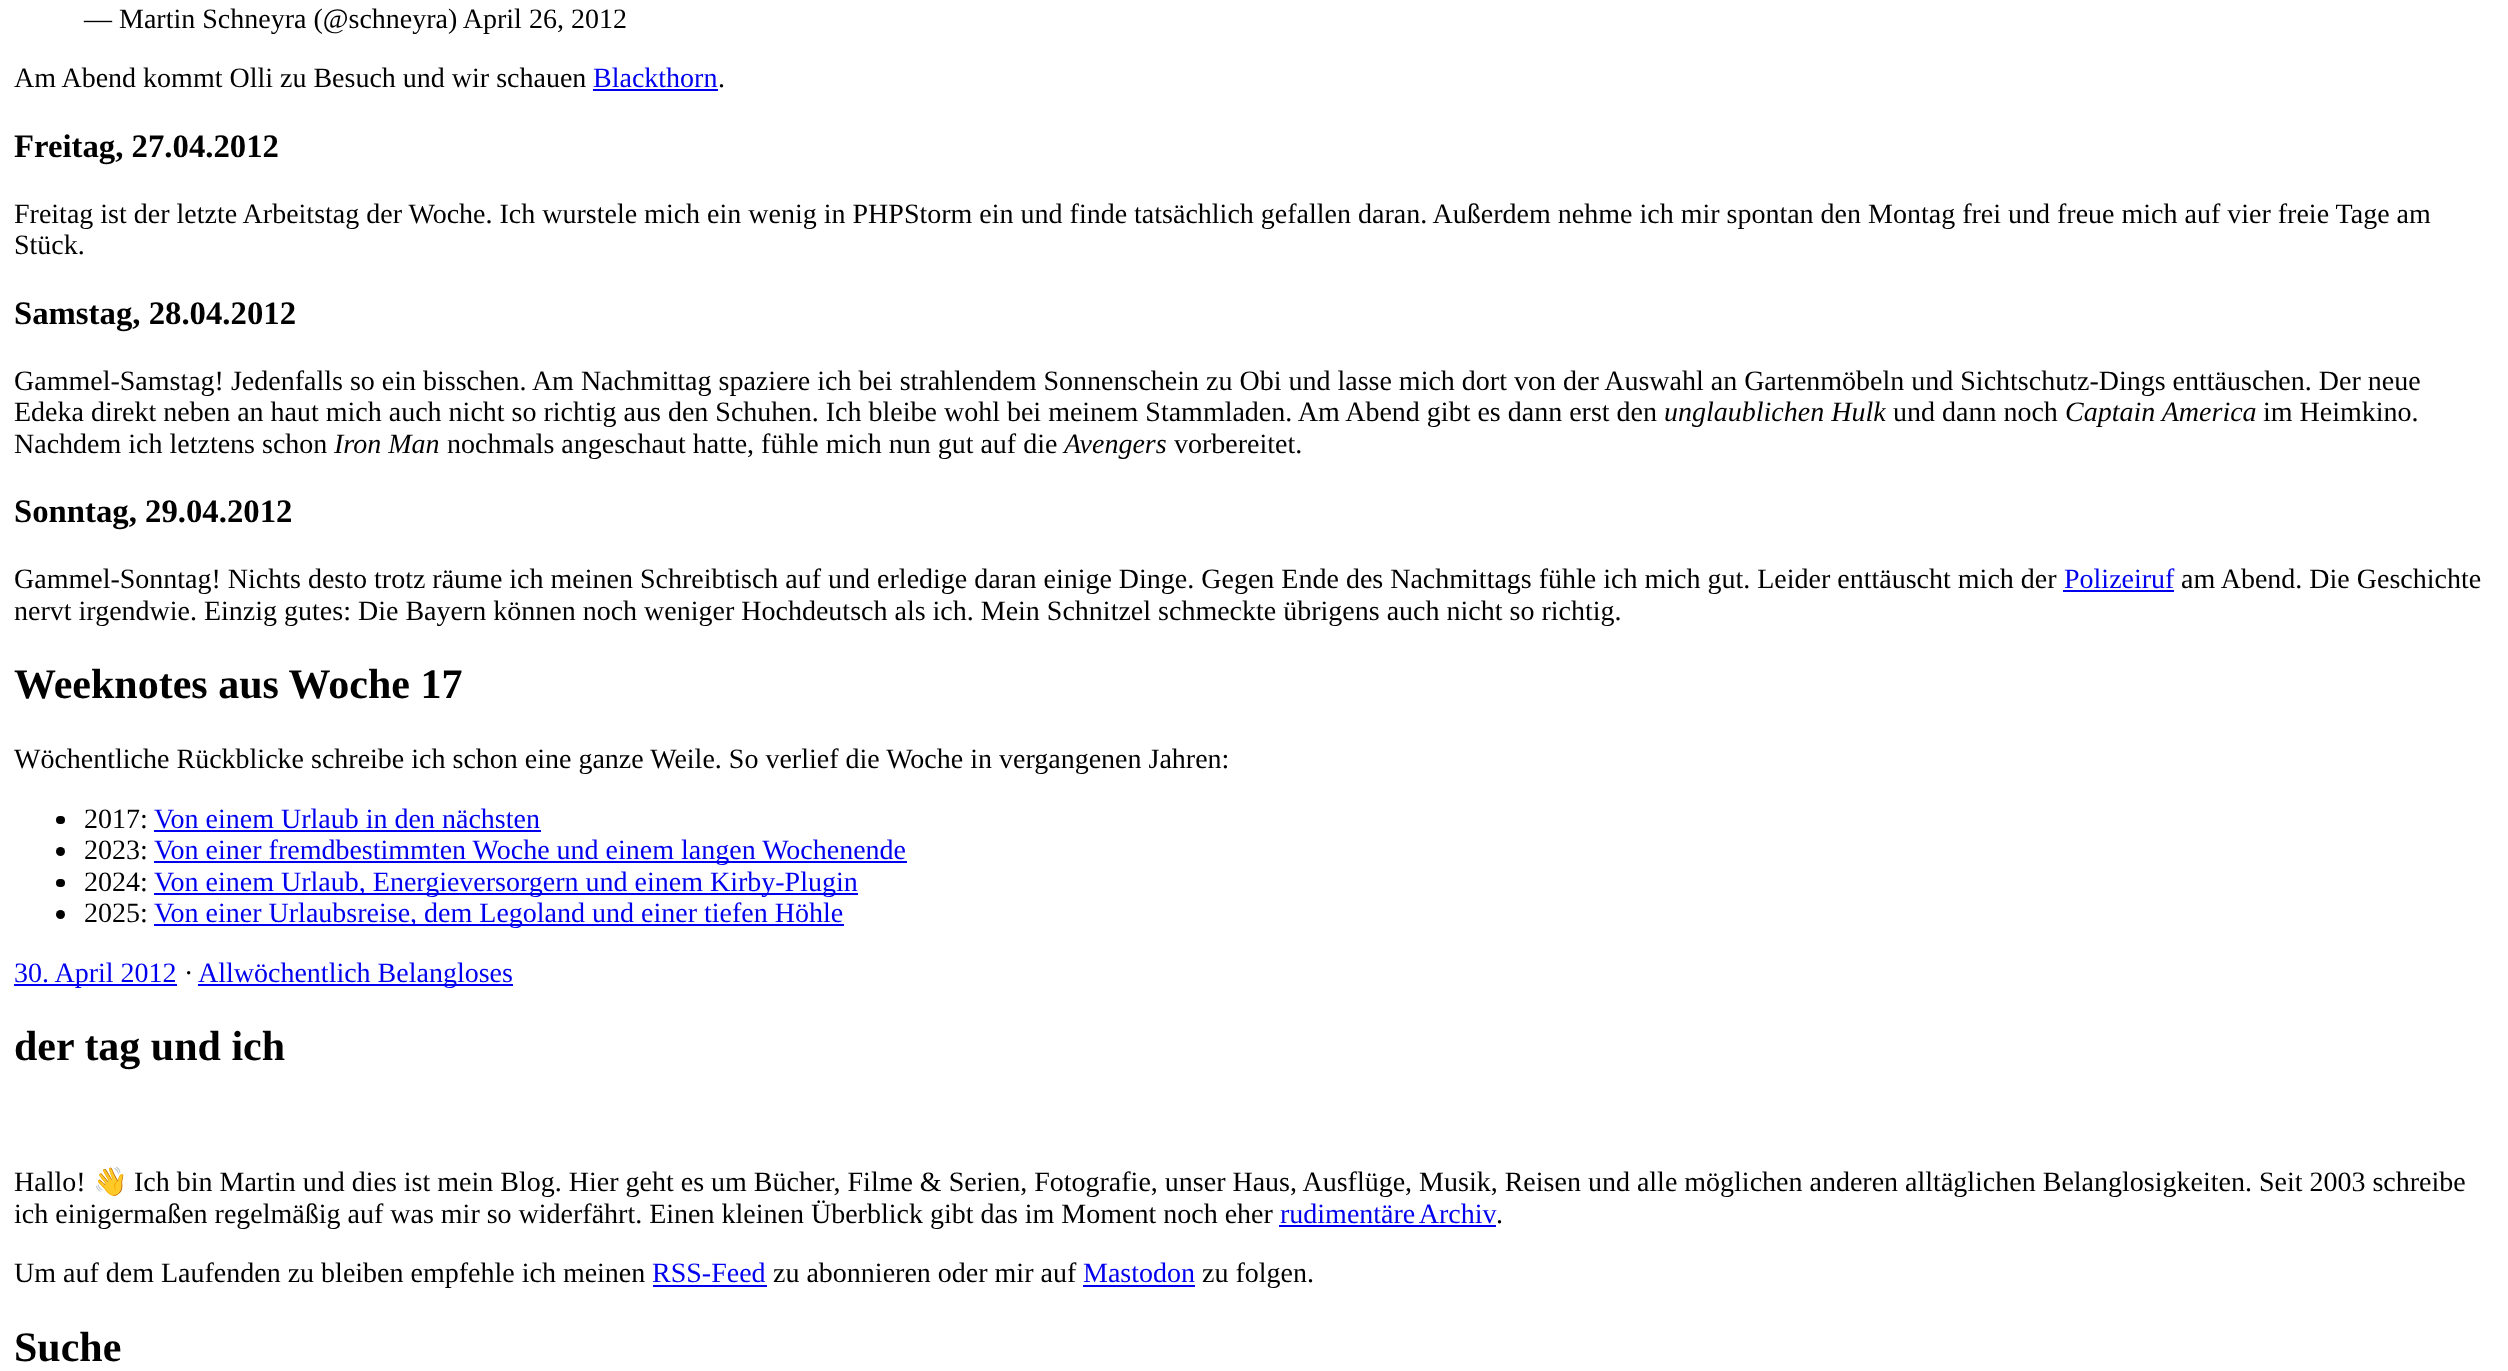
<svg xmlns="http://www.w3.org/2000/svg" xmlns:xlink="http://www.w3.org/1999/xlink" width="2508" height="1371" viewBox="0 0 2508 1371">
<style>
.cls-1{font:28px Liberation Serif;fill:#000000}
.cls-2{font:28px Liberation Serif;fill:#0000ee}
.cls-3{font:bold 32.75px Liberation Serif;fill:#000000}
.cls-4{font:italic 28px Liberation Serif;fill:#000000}
.cls-5{font:bold 42px Liberation Serif;fill:#000000}
.cls-6{font:28px Noto Color Emoji;fill:#000000}
</style>
<rect width="100%" height="100%" fill="#ffffff"/>
<rect fill="#0000ee" x="593" y="89" width="125" height="2"/>
<rect fill="#0000ee" x="2063" y="590" width="111" height="2"/>
<rect fill="#000000" x="56" y="816" width="9" height="8" rx="4"/>
<rect fill="#0000ee" x="154" y="830" width="387" height="2"/>
<circle fill="#000000" cx="60.5" cy="851.5" r="4.5"/>
<rect fill="#0000ee" x="154" y="861" width="753" height="2"/>
<rect fill="#000000" x="56" y="879" width="9" height="8" rx="4"/>
<rect fill="#0000ee" x="154" y="893" width="704" height="2"/>
<circle fill="#000000" cx="60.5" cy="914.5" r="4.5"/>
<rect fill="#0000ee" x="154" y="924" width="690" height="2"/>
<rect fill="#0000ee" x="14" y="984" width="163" height="2"/>
<rect fill="#0000ee" x="198" y="984" width="315" height="2"/>
<rect fill="#0000ee" x="1279" y="1225" width="217" height="2"/>
<rect fill="#0000ee" x="653" y="1285" width="114" height="2"/>
<rect fill="#0000ee" x="1083" y="1285" width="112" height="2"/>
<text class="cls-1" x="84" y="28">— Martin Schneyra (@schneyra) April 26, 2012</text>
<text class="cls-1" x="14" y="87">Am Abend kommt Olli zu Besuch und wir schauen</text>
<text class="cls-2" x="593" y="87">Blackthorn</text>
<text class="cls-1" x="718" y="87">.</text>
<text class="cls-3" x="14" y="157">Freitag, 27.04.2012</text>
<text class="cls-1"><tspan x="14" y="223">Freitag ist der letzte Arbeitstag der Woche. Ich wurstele mich ein wenig in PHPStorm ein und finde tatsächlich gefallen daran. Außerdem nehme ich mir spontan den Montag frei und freue mich auf vier freie Tage am</tspan><tspan x="14" y="254">Stück.</tspan></text>
<text class="cls-3" x="14" y="324">Samstag, 28.04.2012</text>
<text class="cls-1"><tspan x="14" y="390">Gammel-Samstag! Jedenfalls so ein bisschen. Am Nachmittag spaziere ich bei strahlendem Sonnenschein zu Obi und lasse mich dort von der Auswahl an Gartenmöbeln und Sichtschutz-Dings enttäuschen. Der neue</tspan><tspan x="14" y="421">Edeka direkt neben an haut mich auch nicht so richtig aus den Schuhen. Ich bleibe wohl bei meinem Stammladen. Am Abend gibt es dann erst den</tspan></text>
<text class="cls-4" x="1664" y="421">unglaublichen Hulk</text>
<text class="cls-1" x="1893" y="421">und dann noch</text>
<text class="cls-4" x="2065" y="421">Captain America</text>
<text class="cls-1" x="2263" y="421">im Heimkino.</text>
<text class="cls-1" x="14" y="453">Nachdem ich letztens schon</text>
<text class="cls-4" x="334" y="453">Iron Man</text>
<text class="cls-1" x="447" y="453">nochmals angeschaut hatte, fühle mich nun gut auf die</text>
<text class="cls-4" x="1064" y="453">Avengers</text>
<text class="cls-1" x="1174" y="453">vorbereitet.</text>
<text class="cls-3" x="14" y="522">Sonntag, 29.04.2012</text>
<text class="cls-1" x="14" y="588">Gammel-Sonntag! Nichts desto trotz räume ich meinen Schreibtisch auf und erledige daran einige Dinge. Gegen Ende des Nachmittags fühle ich mich gut. Leider enttäuscht mich der</text>
<text class="cls-2" x="2064" y="588">Polizeiruf</text>
<text class="cls-1" x="2181" y="588">am Abend. Die Geschichte</text>
<text class="cls-1" x="14" y="620">nervt irgendwie. Einzig gutes: Die Bayern können noch weniger Hochdeutsch als ich. Mein Schnitzel schmeckte übrigens auch nicht so richtig.</text>
<text class="cls-5" x="14" y="698">Weeknotes aus Woche 17</text>
<text class="cls-1" x="14" y="768">Wöchentliche Rückblicke schreibe ich schon eine ganze Weile. So verlief die Woche in vergangenen Jahren:</text>
<text class="cls-1" x="84" y="828">2017:</text>
<text class="cls-2" x="154" y="828">Von einem Urlaub in den nächsten</text>
<text class="cls-1" x="84" y="859">2023:</text>
<text class="cls-2" x="154" y="859">Von einer fremdbestimmten Woche und einem langen Wochenende</text>
<text class="cls-1" x="84" y="891">2024:</text>
<text class="cls-2" x="154" y="891">Von einem Urlaub, Energieversorgern und einem Kirby-Plugin</text>
<text class="cls-1" x="84" y="922">2025:</text>
<text class="cls-2" x="154" y="922">Von einer Urlaubsreise, dem Legoland und einer tiefen Höhle</text>
<text class="cls-2" x="14" y="982">30. April 2012</text>
<text class="cls-1" x="184" y="982">·</text>
<text class="cls-2" x="198" y="982">Allwöchentlich Belangloses</text>
<text class="cls-5" x="14" y="1060">der tag und ich</text>
<text class="cls-1" x="14" y="1191">Hallo!</text>
<text class="cls-6" x="93" y="1191">👋</text>
<text class="cls-1" x="134" y="1191">Ich bin Martin und dies ist mein Blog. Hier geht es um Bücher, Filme &amp; Serien, Fotografie, unser Haus, Ausflüge, Musik, Reisen und alle möglichen anderen alltäglichen Belanglosigkeiten. Seit 2003 schreibe</text>
<text class="cls-1" x="14" y="1223">ich einigermaßen regelmäßig auf was mir so widerfährt. Einen kleinen Überblick gibt das im Moment noch eher</text>
<text class="cls-2" x="1280" y="1223" word-spacing="-2">rudimentäre Archiv</text>
<text class="cls-1" x="1496" y="1223">.</text>
<text class="cls-1" x="14" y="1282">Um auf dem Laufenden zu bleiben empfehle ich meinen</text>
<text class="cls-2" x="652" y="1282">RSS-Feed</text>
<text class="cls-1" x="773" y="1282">zu abonnieren oder mir auf</text>
<text class="cls-2" x="1083" y="1282">Mastodon</text>
<text class="cls-1" x="1202" y="1282">zu folgen.</text>
<text class="cls-5" x="14" y="1361">Suche</text>
</svg>
